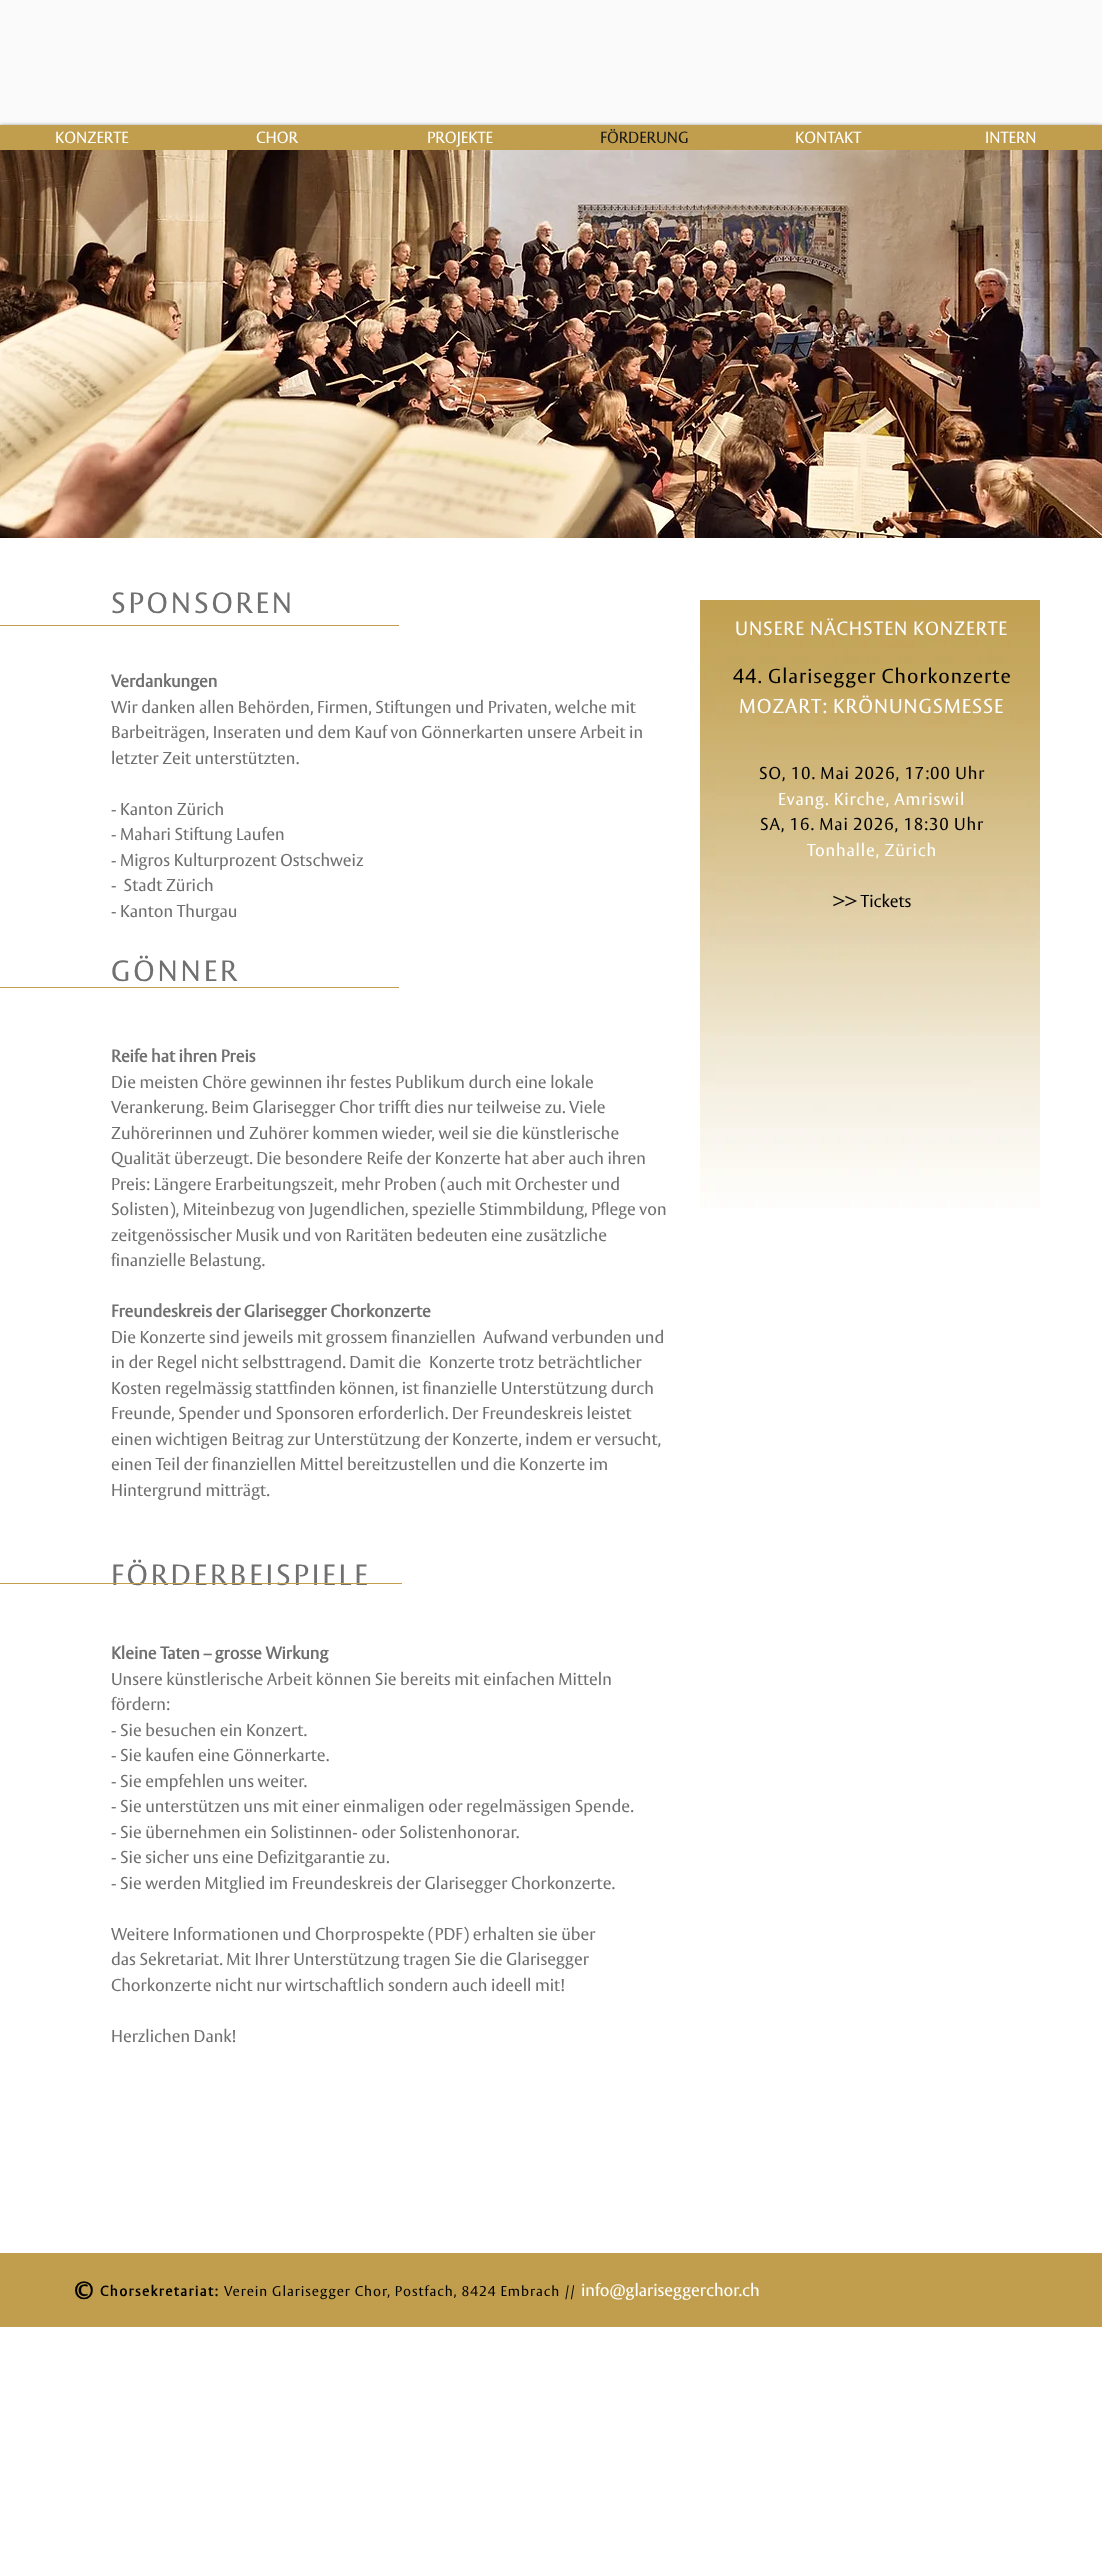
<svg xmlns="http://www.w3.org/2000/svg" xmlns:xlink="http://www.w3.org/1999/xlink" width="1102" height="2551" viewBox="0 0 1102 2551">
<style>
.cls-1{font:16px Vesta;fill:#ffffff}
.cls-2{font:16px Vesta;fill:#171717}
.cls-3{font:29px Vesta;letter-spacing:2.9px;fill:#707070}
.cls-4{font:bold 17px Vesta;fill:#707070}
.cls-5{font:17px Vesta;fill:#707070}
.cls-6{font:19px Vesta;letter-spacing:0.95px;fill:#ffffff}
.cls-7{font:20px Vesta;letter-spacing:1px;fill:#000000}
.cls-8{font:20px Vesta;letter-spacing:1px;fill:#ffffff}
.cls-9{font:17px Vesta;letter-spacing:0.85px;fill:#000000}
.cls-10{font:17px Vesta;letter-spacing:0.85px;fill:#ffffff}
.cls-11{font:17px Vesta;fill:#000000}
.cls-12{font:bold 22px Vesta;letter-spacing:2px;fill:#000000}
.cls-13{font:bold 14px Vesta;letter-spacing:1.4px;fill:#000000}
.cls-14{font:14px Vesta;letter-spacing:0.95px;fill:#000000}
.cls-15{font:14px Vesta;letter-spacing:1.4px;fill:#000000}
.cls-16{font:17px Vesta;fill:#ffffff}
</style>
<rect width="100%" height="100%" fill="#ffffff"/>
<rect fill="#fafafa" x="0" y="0" width="1102" height="125"/>
<rect fill="#000000" fill-opacity="0.6" filter="blur(2px)" x="0" y="126" width="1102" height="25"/>
<rect fill="#c09e4e" x="0" y="125" width="1102" height="25"/>
<image xlink:href="image0.png" x="0" y="150" width="1102" height="388"/>
<rect fill="#c09e4e" x="0" y="625" width="399" height="1"/>
<rect fill="#c09e4e" x="0" y="987" width="399" height="1"/>
<image xlink:href="image1.png" x="700" y="600" width="340" height="608"/>
<rect fill="#c09e4e" x="0" y="2253" width="1102" height="74"/>
<text class="cls-1" x="55" y="143">KONZERTE</text>
<text class="cls-1" x="256" y="143">CHOR</text>
<text class="cls-1" x="427" y="143">PROJEKTE</text>
<text class="cls-2" x="600" y="143">FÖRDERUNG</text>
<text class="cls-1" x="795" y="143">KONTAKT</text>
<text class="cls-1" x="985" y="143">INTERN</text>
<text class="cls-3" x="111" y="613">SPONSOREN</text>
<text class="cls-4" x="111" y="687">Verdankungen</text>
<text class="cls-5"><tspan x="111" y="713">Wir danken allen Behörden, Firmen, Stiftungen und Privaten, welche mit</tspan><tspan x="111" y="738">Barbeiträgen, Inseraten und dem Kauf von Gönnerkarten unsere Arbeit in</tspan><tspan x="111" y="764">letzter Zeit unterstützten.</tspan></text>
<text class="cls-5" xml:space="preserve"><tspan x="111" y="815">- Kanton Zürich</tspan><tspan x="111" y="840">- Mahari Stiftung Laufen</tspan><tspan x="111" y="866">- Migros Kulturprozent Ostschweiz</tspan><tspan x="111" y="891">-  Stadt Zürich</tspan><tspan x="111" y="917">- Kanton Thurgau</tspan></text>
<text class="cls-3" x="111" y="981">GÖNNER</text>
<text class="cls-4" x="111" y="1062">Reife hat ihren Preis</text>
<text class="cls-5"><tspan x="111" y="1088">Die meisten Chöre gewinnen ihr festes Publikum durch eine lokale</tspan><tspan x="111" y="1113">Verankerung. Beim Glarisegger Chor trifft dies nur teilweise zu. Viele</tspan><tspan x="111" y="1139">Zuhörerinnen und Zuhörer kommen wieder, weil sie die künstlerische</tspan><tspan x="111" y="1164">Qualität überzeugt. Die besondere Reife der Konzerte hat aber auch ihren</tspan><tspan x="111" y="1190">Preis: Längere Erarbeitungszeit, mehr Proben (auch mit Orchester und</tspan><tspan x="111" y="1215">Solisten), Miteinbezug von Jugendlichen, spezielle Stimmbildung, Pflege von</tspan><tspan x="111" y="1241">zeitgenössischer Musik und von Raritäten bedeuten eine zusätzliche</tspan><tspan x="111" y="1266">finanzielle Belastung.</tspan></text>
<text class="cls-4" x="111" y="1317">Freundeskreis der Glarisegger Chorkonzerte</text>
<text class="cls-5" x="111" y="1343">Die Konzerte sind jeweils mit grossem finanziellen</text>
<text class="cls-5" x="483" y="1343">Aufwand verbunden und</text>
<text class="cls-5" x="111" y="1368">in der Regel nicht selbsttragend. Damit die</text>
<text class="cls-5" x="429" y="1368">Konzerte trotz beträchtlicher</text>
<text class="cls-5"><tspan x="111" y="1394">Kosten regelmässig stattfinden können, ist finanzielle Unterstützung durch</tspan><tspan x="111" y="1419">Freunde, Spender und Sponsoren erforderlich. Der Freundeskreis leistet</tspan><tspan x="111" y="1445">einen wichtigen Beitrag zur Unterstützung der Konzerte, indem er versucht,</tspan><tspan x="111" y="1470">einen Teil der finanziellen Mittel bereitzustellen und die Konzerte im</tspan><tspan x="111" y="1496">Hintergrund mitträgt.</tspan></text>
<text class="cls-3" x="111" y="1585">FÖRDERBEISPIELE</text>
<text class="cls-4" x="111" y="1659">Kleine Taten – grosse Wirkung</text>
<text class="cls-5"><tspan x="111" y="1685">Unsere künstlerische Arbeit können Sie bereits mit einfachen Mitteln</tspan><tspan x="111" y="1710">fördern:</tspan><tspan x="111" y="1736">- Sie besuchen ein Konzert.</tspan><tspan x="111" y="1761">- Sie kaufen eine Gönnerkarte.</tspan><tspan x="111" y="1787">- Sie empfehlen uns weiter.</tspan><tspan x="111" y="1812">- Sie unterstützen uns mit einer einmaligen oder regelmässigen Spende.</tspan><tspan x="111" y="1838">- Sie übernehmen ein Solistinnen- oder Solistenhonorar.</tspan><tspan x="111" y="1863">- Sie sicher uns eine Defizitgarantie zu.</tspan><tspan x="111" y="1889">- Sie werden Mitglied im Freundeskreis der Glarisegger Chorkonzerte.</tspan></text>
<text class="cls-5"><tspan x="111" y="1940">Weitere Informationen und Chorprospekte (PDF) erhalten sie über</tspan><tspan x="111" y="1965">das Sekretariat. Mit Ihrer Unterstützung tragen Sie die Glarisegger</tspan><tspan x="111" y="1991">Chorkonzerte nicht nur wirtschaftlich sondern auch ideell mit!</tspan></text>
<text class="cls-5" x="111" y="2042">Herzlichen Dank!</text>
<rect fill="#c09e4e" x="0" y="1583" width="402" height="1"/>
<text class="cls-6" x="735" y="635">UNSERE NÄCHSTEN KONZERTE</text>
<text class="cls-7" x="733" y="683">44. Glarisegger Chorkonzerte</text>
<text class="cls-8" x="739" y="713">MOZART: KRÖNUNGSMESSE</text>
<text class="cls-9" x="759" y="779">SO, 10. Mai 2026, 17:00 Uhr</text>
<text class="cls-10" x="778" y="805">Evang. Kirche, Amriswil</text>
<text class="cls-9" x="760" y="830">SA, 16. Mai 2026, 18:30 Uhr</text>
<text class="cls-10" x="807" y="856">Tonhalle, Zürich</text>
<text class="cls-11" x="833" y="907">&gt;&gt; Tickets</text>
<text class="cls-12" x="74" y="2296">©</text>
<text class="cls-13" x="100" y="2296">Chorsekretariat:</text>
<text class="cls-14" x="224" y="2296">Verein Glarisegger Chor, Postfach, 8424 Embrach</text>
<text class="cls-15" x="565" y="2296">//</text>
<text class="cls-16" x="581" y="2296">info@glariseggerchor.ch</text>
</svg>
